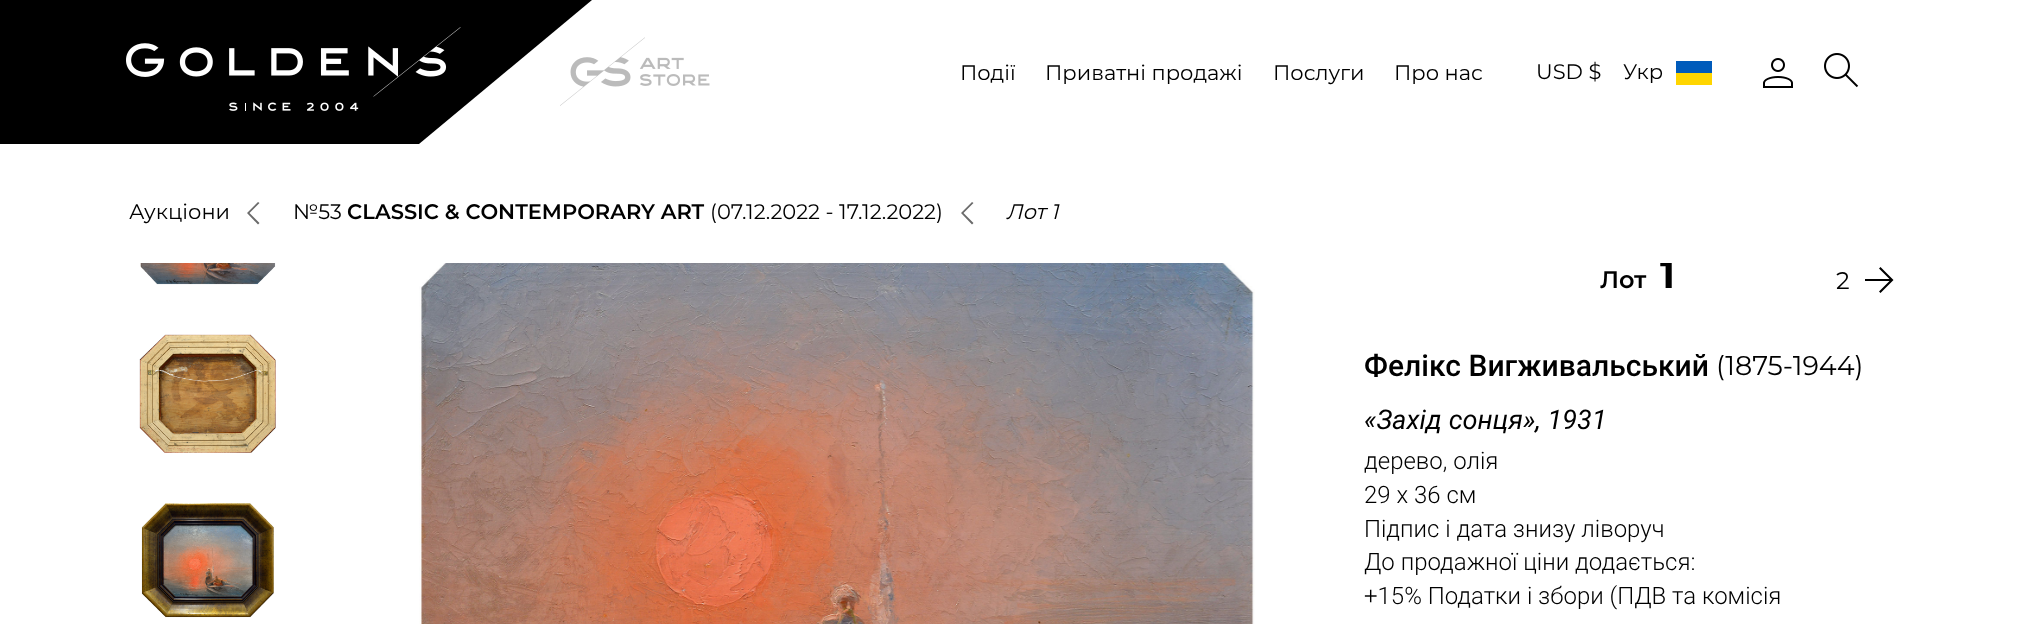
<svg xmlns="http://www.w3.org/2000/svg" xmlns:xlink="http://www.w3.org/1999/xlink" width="2035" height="624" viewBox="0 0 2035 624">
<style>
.cls-1{font:21px Montserrat;fill:#000000}
.cls-2{font:600 21px Montserrat;fill:#000000}
.cls-3{font:italic 21px Montserrat;fill:#000000}
.cls-4{font:600 24px Montserrat;fill:#000000}
.cls-5{font:bold 38px Montserrat;fill:#000000}
.cls-6{font:24px Montserrat;fill:#000000}
.cls-7{font:500 30px Roboto;fill:#000000}
.cls-8{font:27px Montserrat;fill:#000000}
.cls-9{font:italic 27px Roboto;fill:#000000}
.cls-10{font:300 24px Roboto;fill:#000000}
</style>
<rect width="100%" height="100%" fill="#ffffff"/>
<rect fill="#000000" x="0" y="0" width="104" height="144"/>
<image xlink:href="image1.png" x="560" y="37" width="150" height="69"/>
<path fill="#000000" d="M104 0V144H419L592 0Z"/>
<image xlink:href="image0.png" x="126" y="27" width="335" height="84"/>
<rect fill="#005bbb" x="1676" y="61" width="36" height="12"/>
<rect fill="#ffd500" x="1676" y="73" width="36" height="12"/>
<image xlink:href="image2.png" x="1763" y="58" width="30" height="30"/>
<image xlink:href="image3.png" x="1824" y="53" width="35" height="35"/>
<path fill="#6b6b6b" d="M258 224.5L247 213L258 202L259.5 203L249.5 213L259.5 223Z"/>
<path fill="#6b6b6b" d="M972 224.5L961 213L972 202L973.5 203L963.5 213L973.5 223Z"/>
<image xlink:href="image4.png" x="140" y="263" width="136" height="22"/>
<image xlink:href="image5.png" x="139" y="334" width="137" height="119"/>
<image xlink:href="image6.png" x="141" y="503" width="133" height="115"/>
<image xlink:href="image7.png" x="419" y="263" width="836" height="361"/>
<path fill="#000000" d="M1865 279H1889.5L1879 268.5L1880.5 267L1893.5 280L1880.5 293L1879 291.5L1889.5 281H1865Z"/>
<text class="cls-1" x="960" y="80">Події</text>
<text class="cls-1" x="1045" y="80">Приватні продажі</text>
<text class="cls-1" x="1273" y="80">Послуги</text>
<text class="cls-1" x="1394" y="80">Про нас</text>
<text class="cls-1" x="1536" y="79">USD $</text>
<text class="cls-1" x="1623" y="79">Укр</text>
<text class="cls-1" x="129" y="219">Аукціони</text>
<text class="cls-1" x="293" y="219">№53</text>
<text class="cls-2" x="347" y="219">CLASSIC &amp; CONTEMPORARY ART</text>
<text class="cls-1" x="710" y="219">(07.12.2022 - 17.12.2022)</text>
<text class="cls-3" x="1006" y="219">Лот 1</text>
<text class="cls-4" x="1600" y="288">Лот</text>
<text class="cls-5" x="1660" y="288">1</text>
<rect fill="#ffffff" x="1660" y="261" width="12" height="2"/>
<text class="cls-6" x="1836" y="289">2</text>
<text class="cls-7" x="1364" y="376">Фелікс Вигживальський</text>
<text class="cls-8" x="1716" y="375">(1875-1944)</text>
<text class="cls-9" x="1364" y="429">«Захід сонця», 1931</text>
<text class="cls-10"><tspan x="1364" y="469">дерево, олія</tspan><tspan x="1364" y="503">29 x 36 см</tspan><tspan x="1364" y="537">Підпис і дата знизу ліворуч</tspan><tspan x="1364" y="570">До продажної ціни додається:</tspan><tspan x="1364" y="604">+15% Податки і збори (ПДВ та комісія</tspan></text>
</svg>
